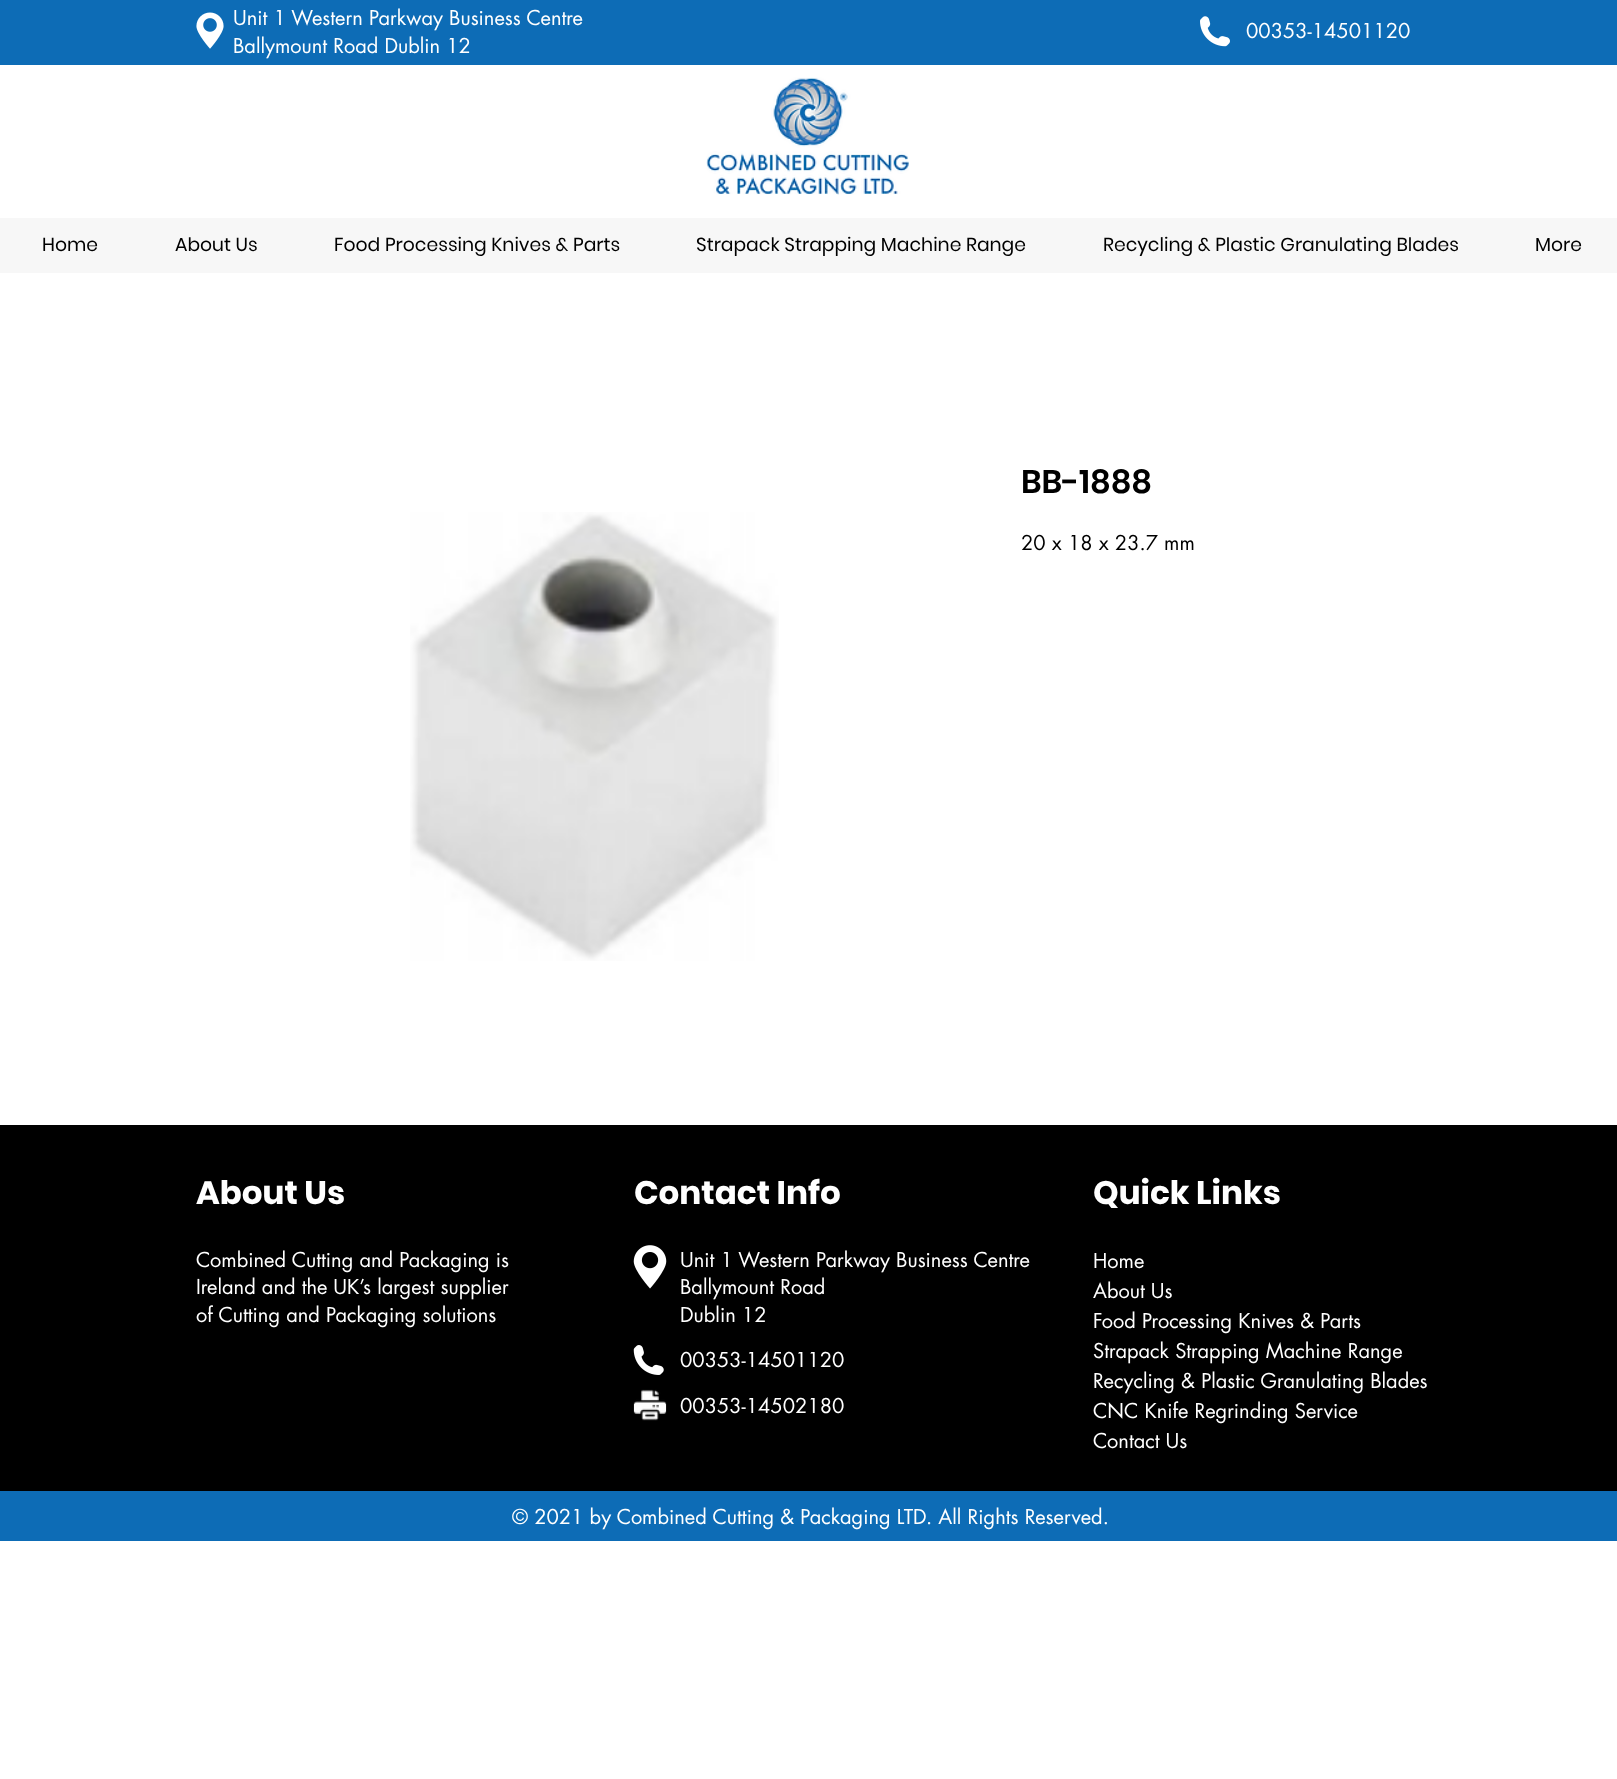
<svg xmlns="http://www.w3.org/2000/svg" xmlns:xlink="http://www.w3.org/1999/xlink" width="1617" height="1779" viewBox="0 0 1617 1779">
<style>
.cls-1{font:20px futura;fill:#ffffff}
.cls-2{font:18.75px Poppins;fill:#000000}
.cls-3{font:600 32.5px Poppins;fill:#000000}
.cls-4{font:20px futura;fill:#000000}
.cls-5{font:bold 32.5px Poppins;fill:#ffffff}
</style>
<rect width="100%" height="100%" fill="#ffffff"/>
<rect fill="#0d6cb6" x="0" y="0" width="1617" height="65"/>
<image xlink:href="image0.png" x="196" y="12" width="28" height="37"/>
<image xlink:href="image1.png" x="1200" y="16" width="30" height="31"/>
<image xlink:href="image2.png" x="706" y="77" width="203" height="118"/>
<rect fill="#f7f7f7" x="0" y="218" width="1617" height="55"/>
<image xlink:href="image3.png" x="410" y="512" width="369" height="449"/>
<rect fill="#000000" x="0" y="1125" width="1617" height="366"/>
<image xlink:href="image4.png" x="633" y="1245" width="34" height="44"/>
<image xlink:href="image5.png" x="633" y="1345" width="31" height="30"/>
<image xlink:href="image6.png" x="633" y="1389" width="34" height="32"/>
<rect fill="#0d6cb6" x="0" y="1491" width="1617" height="50"/>
<text class="cls-1"><tspan x="233" y="25">Unit 1 Western Parkway Business Centre</tspan><tspan x="233" y="53">Ballymount Road Dublin 12</tspan></text>
<text class="cls-1" x="1246" y="38">00353-14501120</text>
<text class="cls-2" x="42" y="251">Home</text>
<text class="cls-2" x="175" y="251">About Us</text>
<text class="cls-2" x="334" y="251">Food Processing Knives &amp; Parts</text>
<text class="cls-2" x="696" y="251">Strapack Strapping Machine Range</text>
<text class="cls-2" x="1103" y="251">Recycling &amp; Plastic Granulating Blades</text>
<text class="cls-2" x="1535" y="251">More</text>
<text class="cls-3" x="1021" y="493">BB-1888</text>
<text class="cls-4" x="1021" y="550">20 x 18 x 23.7 mm</text>
<text class="cls-5" x="196" y="1204">About Us</text>
<text class="cls-5" x="634" y="1204">Contact Info</text>
<text class="cls-5" x="1093" y="1204">Quick Links</text>
<text class="cls-1"><tspan x="196" y="1267">Combined Cutting and Packaging is</tspan><tspan x="196" y="1294">Ireland and the UK’s largest supplier</tspan><tspan x="196" y="1322">of Cutting and Packaging solutions</tspan></text>
<text class="cls-1"><tspan x="680" y="1267">Unit 1 Western Parkway Business Centre</tspan><tspan x="680" y="1294">Ballymount Road</tspan><tspan x="680" y="1322">Dublin 12</tspan></text>
<text class="cls-1"><tspan x="1093" y="1268">Home</tspan><tspan x="1093" y="1298">About Us</tspan><tspan x="1093" y="1328">Food Processing Knives &amp; Parts</tspan><tspan x="1093" y="1358">Strapack Strapping Machine Range</tspan><tspan x="1093" y="1388">Recycling &amp; Plastic Granulating Blades</tspan><tspan x="1093" y="1418">CNC Knife Regrinding Service</tspan><tspan x="1093" y="1448">Contact Us</tspan></text>
<text class="cls-1" x="680" y="1367">00353-14501120</text>
<text class="cls-1" x="680" y="1413">00353-14502180</text>
<text class="cls-1" x="512" y="1524">© 2021 by Combined Cutting &amp; Packaging LTD. All Rights Reserved.</text>
</svg>
